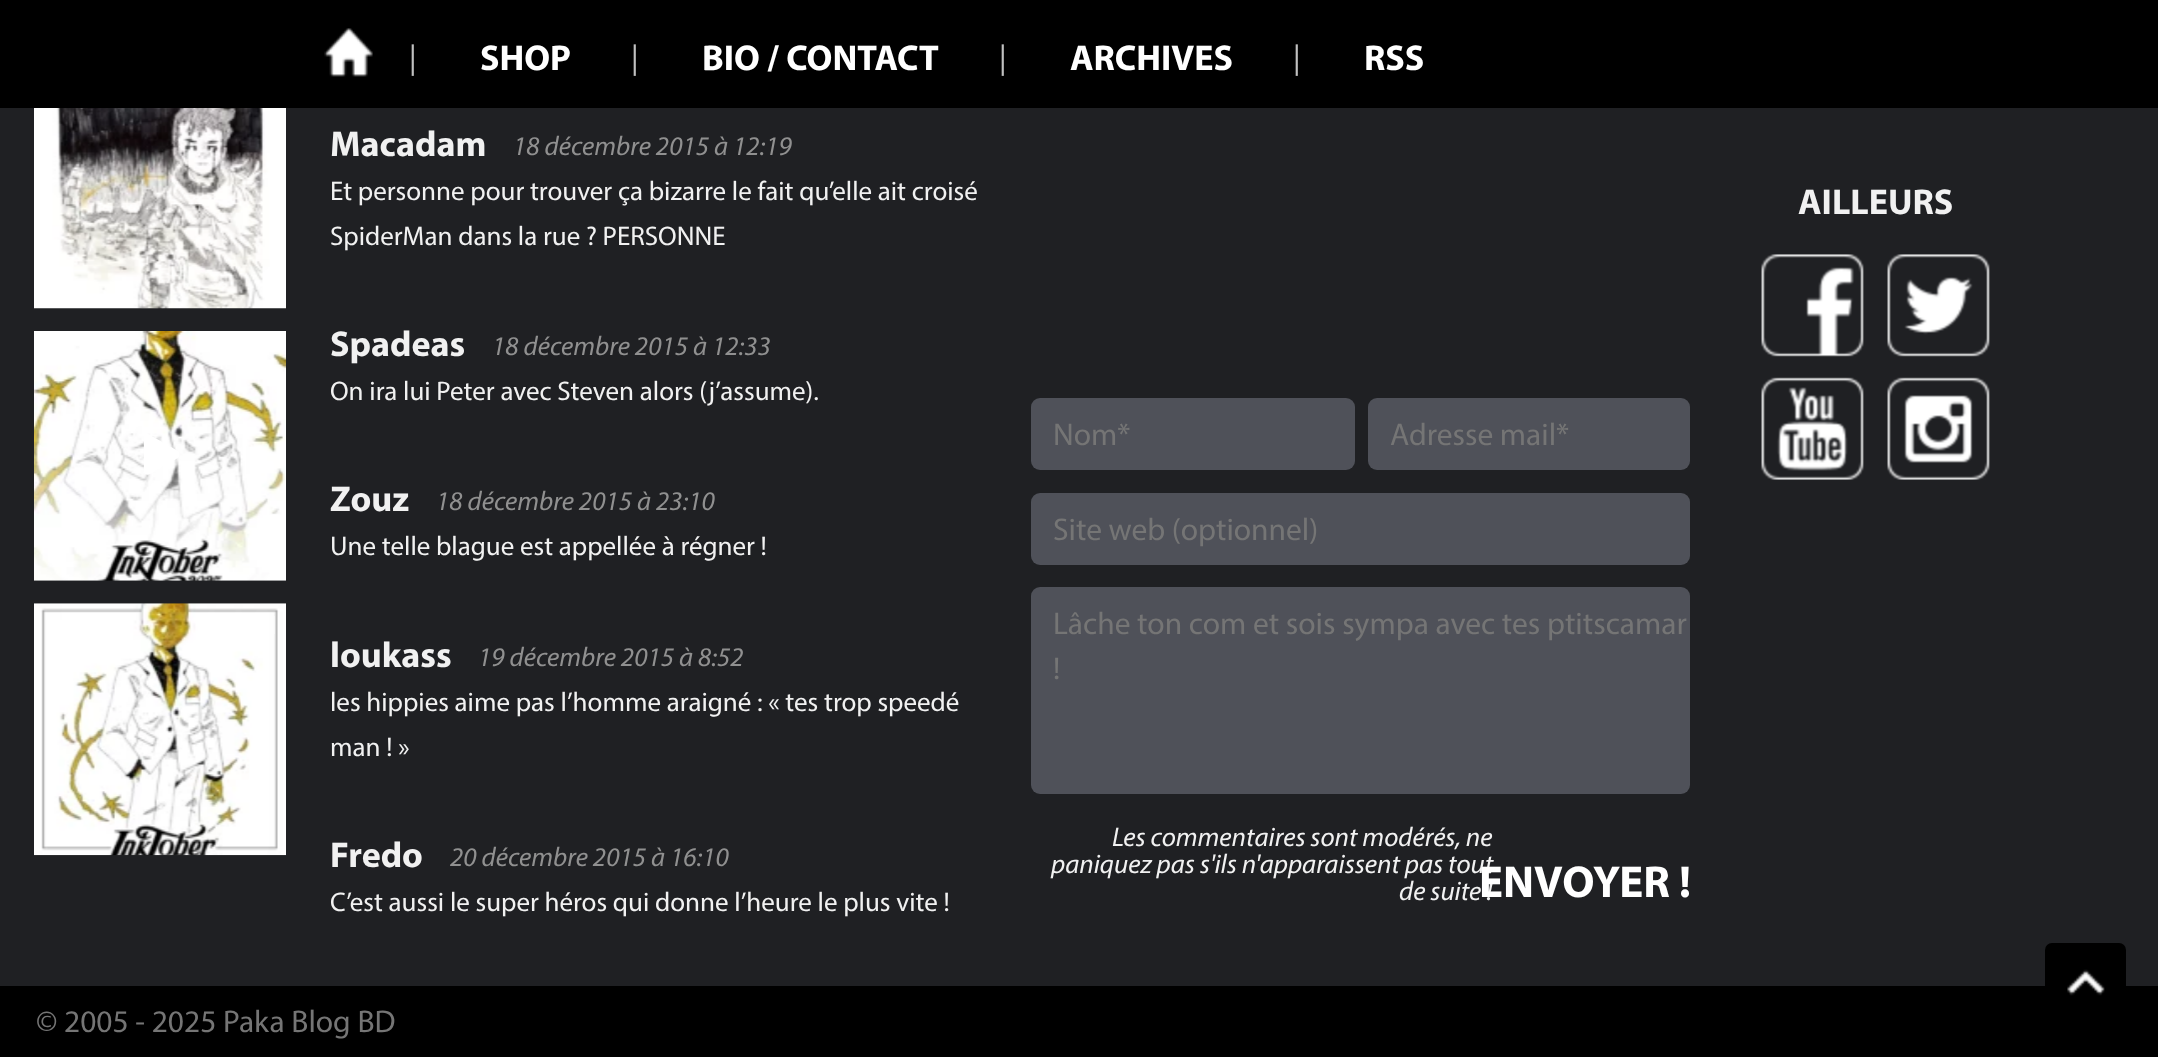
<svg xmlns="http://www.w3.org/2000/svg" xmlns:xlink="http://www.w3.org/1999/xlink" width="2158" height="1057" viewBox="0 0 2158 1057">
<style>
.cls-1{font:31.5px Myriad;fill:#c0c0c0}
.cls-2{font:bold 36px Myriad;fill:#ffffff}
.cls-3{font:bold 36px Myriad;fill:#f1f1f1}
.cls-4{font:italic 27px Myriad;fill:#909090}
.cls-5{font:27px Myriad;fill:#f1f1f1}
.cls-6{font:31.5px Myriad;fill:#757575}
.cls-7{font:italic 27px Myriad;fill:#f1f1f1}
.cls-8{font:bold 45px Myriad;fill:#ffffff}
</style>
<rect width="100%" height="100%" fill="#1f2023"/>
<rect fill="#000000" x="0" y="0" width="2158" height="108"/>
<image xlink:href="image0.png" x="324" y="28" width="49" height="49"/>
<image xlink:href="image1.png" x="34" y="108" width="252" height="201"/>
<image xlink:href="image2.png" x="34" y="331" width="252" height="250"/>
<path fill="#ffffff" d="M178 451L150 435C147 433 144 435 144 438V471C144 474 147 476 150 474L178 458C180 456 180 453 178 451Z"/>
<image xlink:href="image3.png" x="34" y="603" width="252" height="253"/>
<image xlink:href="image4.png" x="274" y="616" width="1" height="18"/>
<rect fill="#4f5159" x="1031" y="398" width="324" height="72" rx="9"/>
<rect fill="#4f5159" x="1368" y="398" width="322" height="72" rx="9"/>
<rect fill="#4f5159" x="1031" y="493" width="659" height="72" rx="9"/>
<rect fill="#4f5159" x="1031" y="587" width="659" height="207" rx="9"/>
<image xlink:href="image5.png" x="1761" y="254" width="103" height="103"/>
<image xlink:href="image6.png" x="1887" y="254" width="103" height="103"/>
<image xlink:href="image7.png" x="1761" y="377" width="103" height="103"/>
<image xlink:href="image8.png" x="1887" y="377" width="103" height="103"/>
<rect fill="#000000" x="0" y="986" width="2158" height="71"/>
<rect fill="#000000" x="2045" y="943" width="81" height="81" rx="7"/>
<image xlink:href="image9.png" x="2067" y="969" width="38" height="27"/>
<text class="cls-1" x="409" y="68">|</text>
<text class="cls-2" x="480" y="70">SHOP</text>
<text class="cls-1" x="631" y="68">|</text>
<text class="cls-2" x="702" y="70">BIO / CONTACT</text>
<text class="cls-1" x="999" y="68">|</text>
<text class="cls-2" x="1070" y="70">ARCHIVES</text>
<text class="cls-1" x="1293" y="68">|</text>
<text class="cls-2" x="1364" y="70">RSS</text>
<text class="cls-3" x="330" y="156">Macadam</text>
<text class="cls-4" x="513" y="155">18 décembre 2015 à 12:19</text>
<text class="cls-5"><tspan x="330" y="200">Et personne pour trouver ça bizarre le fait qu’elle ait croisé</tspan><tspan x="330" y="245">SpiderMan dans la rue ? PERSONNE</tspan></text>
<text class="cls-3" x="330" y="356">Spadeas</text>
<text class="cls-4" x="492" y="355">18 décembre 2015 à 12:33</text>
<text class="cls-5" x="330" y="400">On ira lui Peter avec Steven alors (j’assume).</text>
<text class="cls-3" x="330" y="511">Zouz</text>
<text class="cls-4" x="436" y="510">18 décembre 2015 à 23:10</text>
<text class="cls-5" x="330" y="555">Une telle blague est appellée à régner !</text>
<text class="cls-3" x="330" y="667">loukass</text>
<text class="cls-4" x="478" y="666">19 décembre 2015 à 8:52</text>
<text class="cls-5"><tspan x="330" y="711">les hippies aime pas l’homme araigné : « tes trop speedé</tspan><tspan x="330" y="756">man ! »</tspan></text>
<text class="cls-3" x="330" y="867">Fredo</text>
<text class="cls-4" x="450" y="866">20 décembre 2015 à 16:10</text>
<text class="cls-5" x="330" y="911">C’est aussi le super héros qui donne l’heure le plus vite !</text>
<text class="cls-6" x="1053" y="445">Nom*</text>
<text class="cls-6" x="1390" y="445">Adresse mail*</text>
<text class="cls-6" x="1053" y="540">Site web (optionnel)</text>
<text class="cls-6"><tspan x="1053" y="634">Lâche ton com et sois sympa avec tes ptitscamar</tspan><tspan x="1053" y="679">!</tspan></text>
<text class="cls-7" x="1112" y="846">Les commentaires sont modérés, ne</text>
<text class="cls-7" x="1051" y="873">paniquez pas s'ils n'apparaissent pas tout</text>
<text class="cls-7" x="1399" y="900">de suite !</text>
<text class="cls-8" x="1479" y="897">ENVOYER !</text>
<text class="cls-3" x="1798" y="214">AILLEURS</text>
<text class="cls-6" x="36" y="1032">© 2005 - 2025 Paka Blog BD</text>
</svg>
